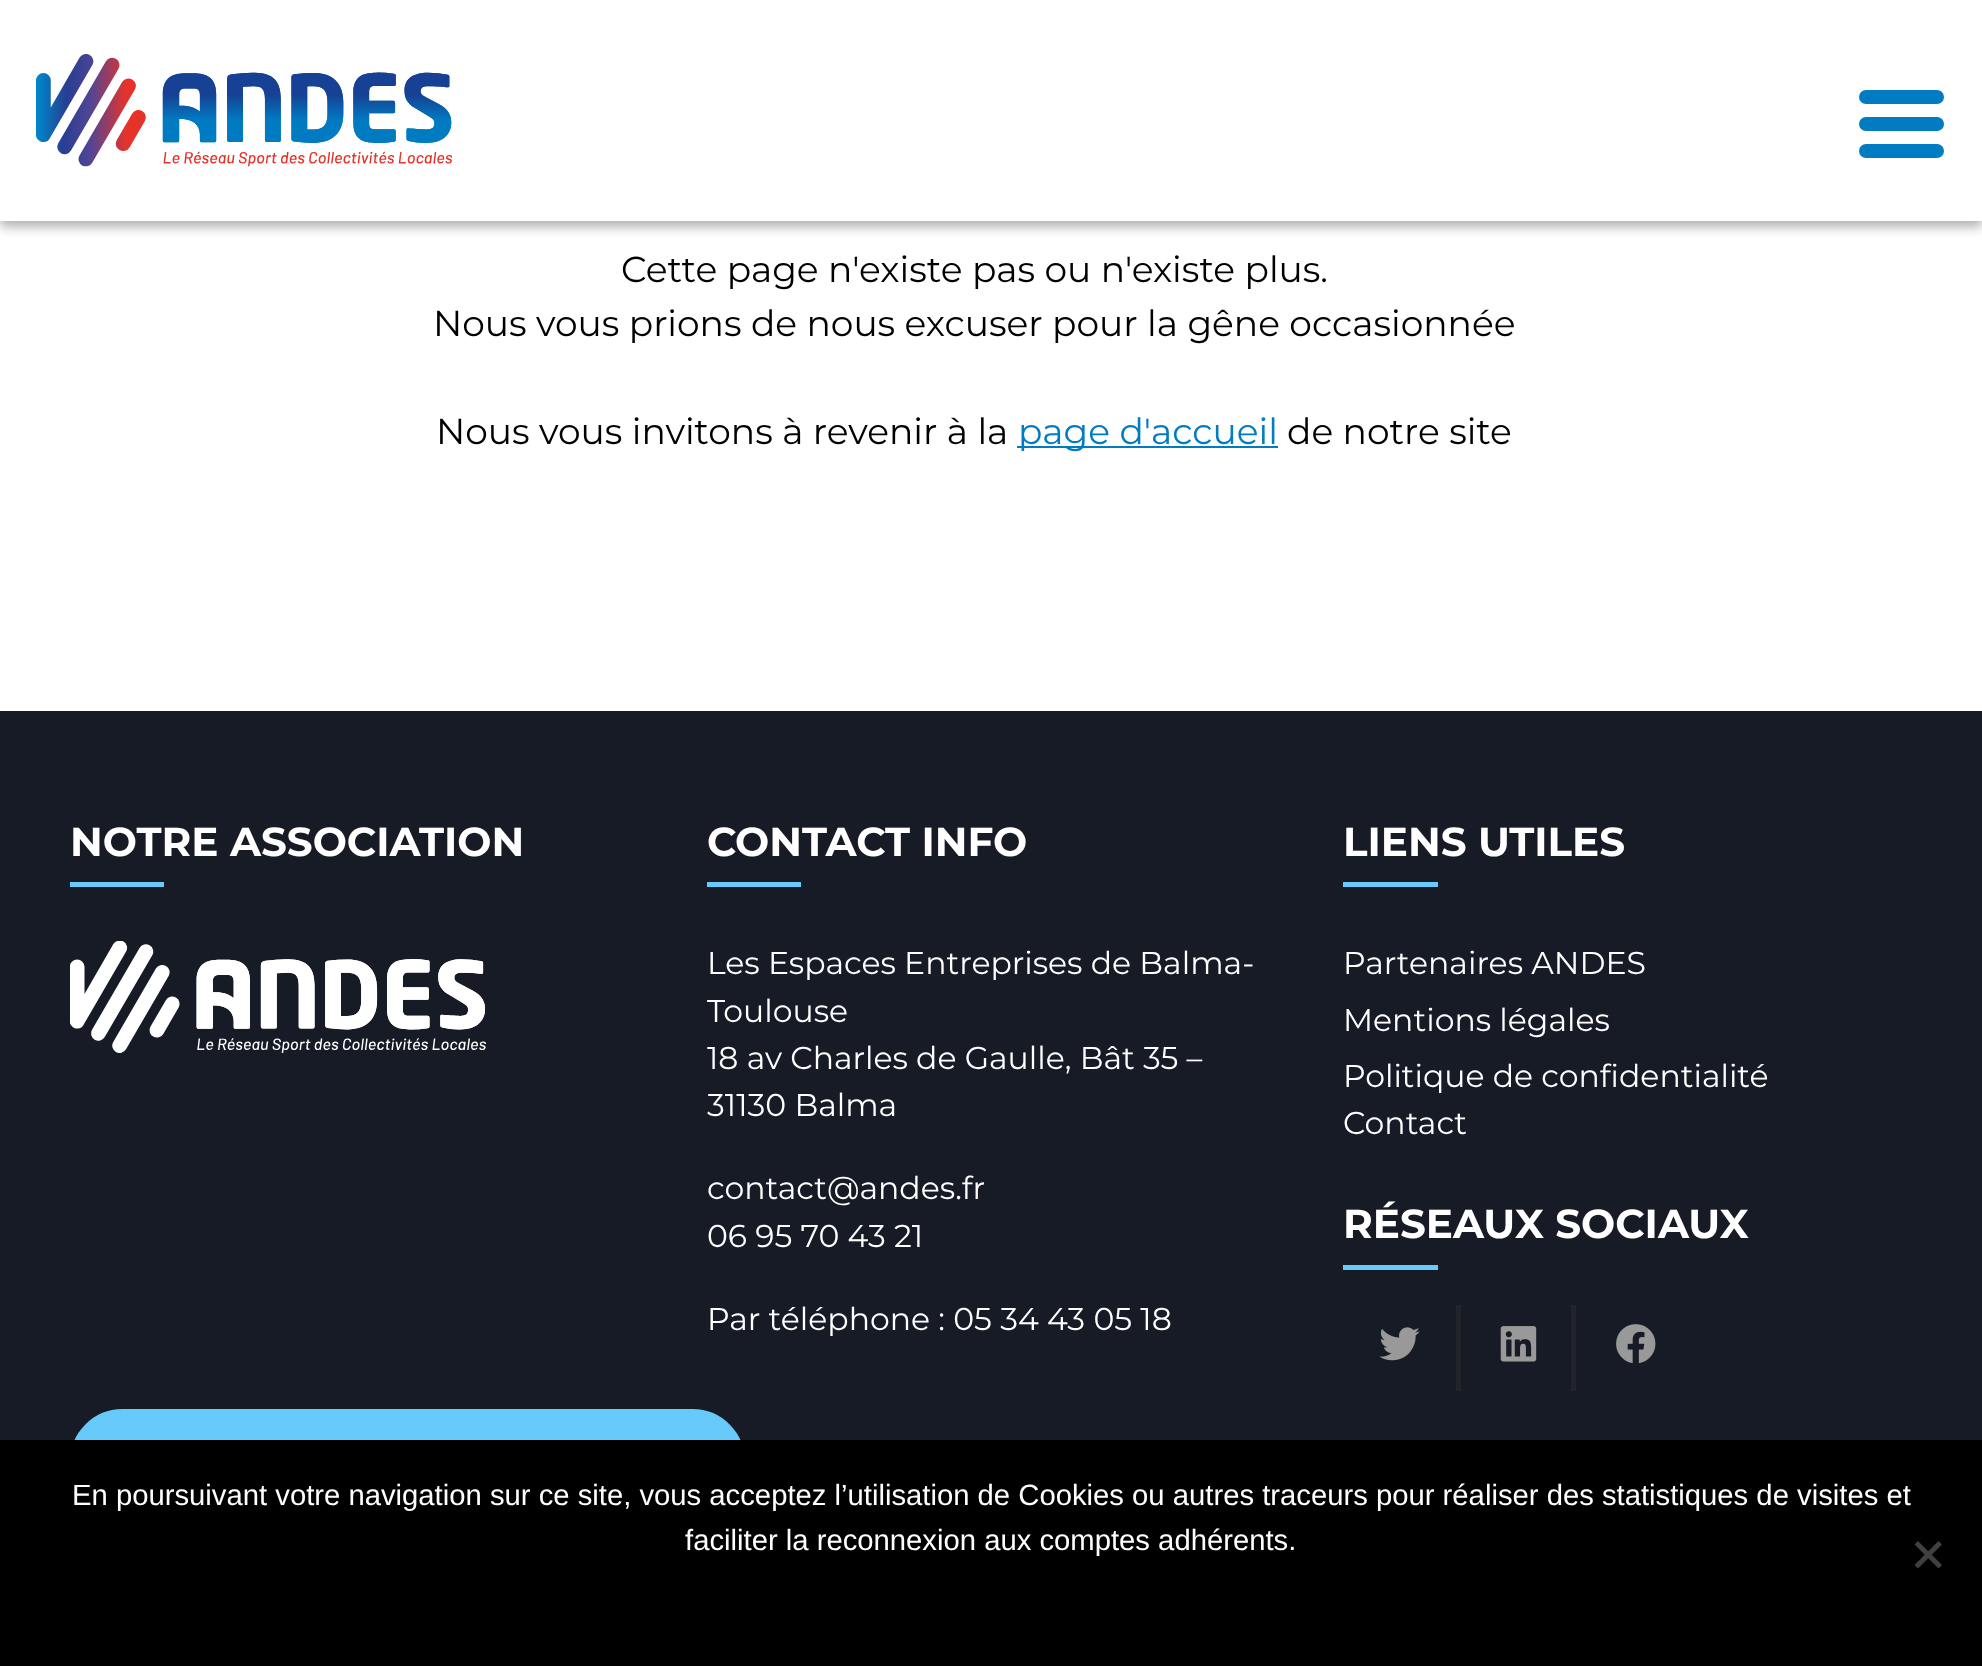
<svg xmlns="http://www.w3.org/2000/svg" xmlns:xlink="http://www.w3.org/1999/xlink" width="1982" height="1666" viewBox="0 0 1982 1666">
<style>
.cls-1{font:36px Montserrat;fill:#000000}
.cls-2{font:36px Montserrat;fill:#017cc2}
.cls-3{font:bold 40.5px Montserrat;fill:#ffffff}
.cls-4{font:31.5px Montserrat;fill:#ffffff}
.cls-5{font:29.25px Liberation Sans;fill:#ffffff}
</style>
<rect width="100%" height="100%" fill="#ffffff"/>
<rect fill="#000000" fill-opacity="0.3" filter="blur(5.5px)" x="0" y="7" width="1982" height="220"/>
<rect fill="#ffffff" x="0" y="0" width="1982" height="221"/>
<image xlink:href="image0.png" x="36" y="54" width="416" height="113"/>
<rect fill="#017cc2" x="1859" y="117" width="85" height="14" rx="7"/>
<rect fill="#017cc2" x="1859" y="90" width="85" height="14" rx="7"/>
<rect fill="#017cc2" x="1859" y="144" width="85" height="14" rx="7"/>
<rect fill="#017cc2" x="1017" y="446" width="261" height="2"/>
<rect fill="#171b26" x="0" y="711" width="1982" height="729"/>
<rect fill="#68cafa" x="70" y="882" width="94" height="5"/>
<image xlink:href="image1.png" x="70" y="941" width="416" height="112"/>
<rect fill="#68cafa" x="707" y="882" width="94" height="5"/>
<rect fill="#68cafa" x="1343" y="882" width="95" height="5"/>
<rect fill="#68cafa" x="1343" y="1265" width="95" height="5"/>
<image xlink:href="image2.png" x="1379" y="1327" width="41" height="34"/>
<rect fill="#212529" x="1456" y="1305" width="5" height="86"/>
<image xlink:href="image3.png" x="1500" y="1326" width="37" height="36"/>
<rect fill="#212529" x="1571" y="1305" width="5" height="86"/>
<image xlink:href="image4.png" x="1616" y="1324" width="40" height="40"/>
<rect fill="#68cafa" stroke="#68cafa" stroke-width="2" x="71" y="1410" width="673" height="103" rx="51.5"/>
<rect fill="#000000" x="0" y="1440" width="1982" height="226"/>
<path fill="#404040" d="M1938.5 1541L1942 1544.5L1918 1568.5L1914.5 1565Z"/>
<path fill="#404040" d="M1914.5 1544.5L1918 1541L1942 1565L1938.5 1568.5Z"/>
<text class="cls-1" x="621" y="282">Cette page n'existe pas ou n'existe plus.</text>
<text class="cls-1" x="433" y="336">Nous vous prions de nous excuser pour la gêne occasionnée</text>
<text class="cls-1" x="436" y="444">Nous vous invitons à revenir à la</text>
<text class="cls-2" x="1018" y="444">page d'accueil</text>
<text class="cls-1" x="1287" y="444">de notre site</text>
<text class="cls-3" x="70" y="856">NOTRE ASSOCIATION</text>
<text class="cls-3" x="707" y="856">CONTACT INFO</text>
<text class="cls-4"><tspan x="707" y="974">Les Espaces Entreprises de Balma-</tspan><tspan x="707" y="1022">Toulouse</tspan><tspan x="707" y="1069">18 av Charles de Gaulle, Bât 35 –</tspan><tspan x="707" y="1116">31130 Balma</tspan></text>
<text class="cls-4"><tspan x="707" y="1199">contact@andes.fr</tspan><tspan x="707" y="1247">06 95 70 43 21</tspan></text>
<text class="cls-4" x="707" y="1330">Par téléphone : 05 34 43 05 18</text>
<text class="cls-3" x="1343" y="856">LIENS UTILES</text>
<text class="cls-4"><tspan x="1343" y="974">Partenaires ANDES</tspan><tspan x="1343" y="1031">Mentions légales</tspan><tspan x="1343" y="1087">Politique de confidentialité</tspan><tspan x="1343" y="1134">Contact</tspan></text>
<text class="cls-3" x="1343" y="1238">RÉSEAUX SOCIAUX</text>
<text class="cls-5" x="72" y="1505">En poursuivant votre navigation sur ce site, vous acceptez l’utilisation de Cookies ou autres traceurs pour réaliser des statistiques de visites et</text>
<text class="cls-5" x="685" y="1550">faciliter la reconnexion aux comptes adhérents.</text>
</svg>
